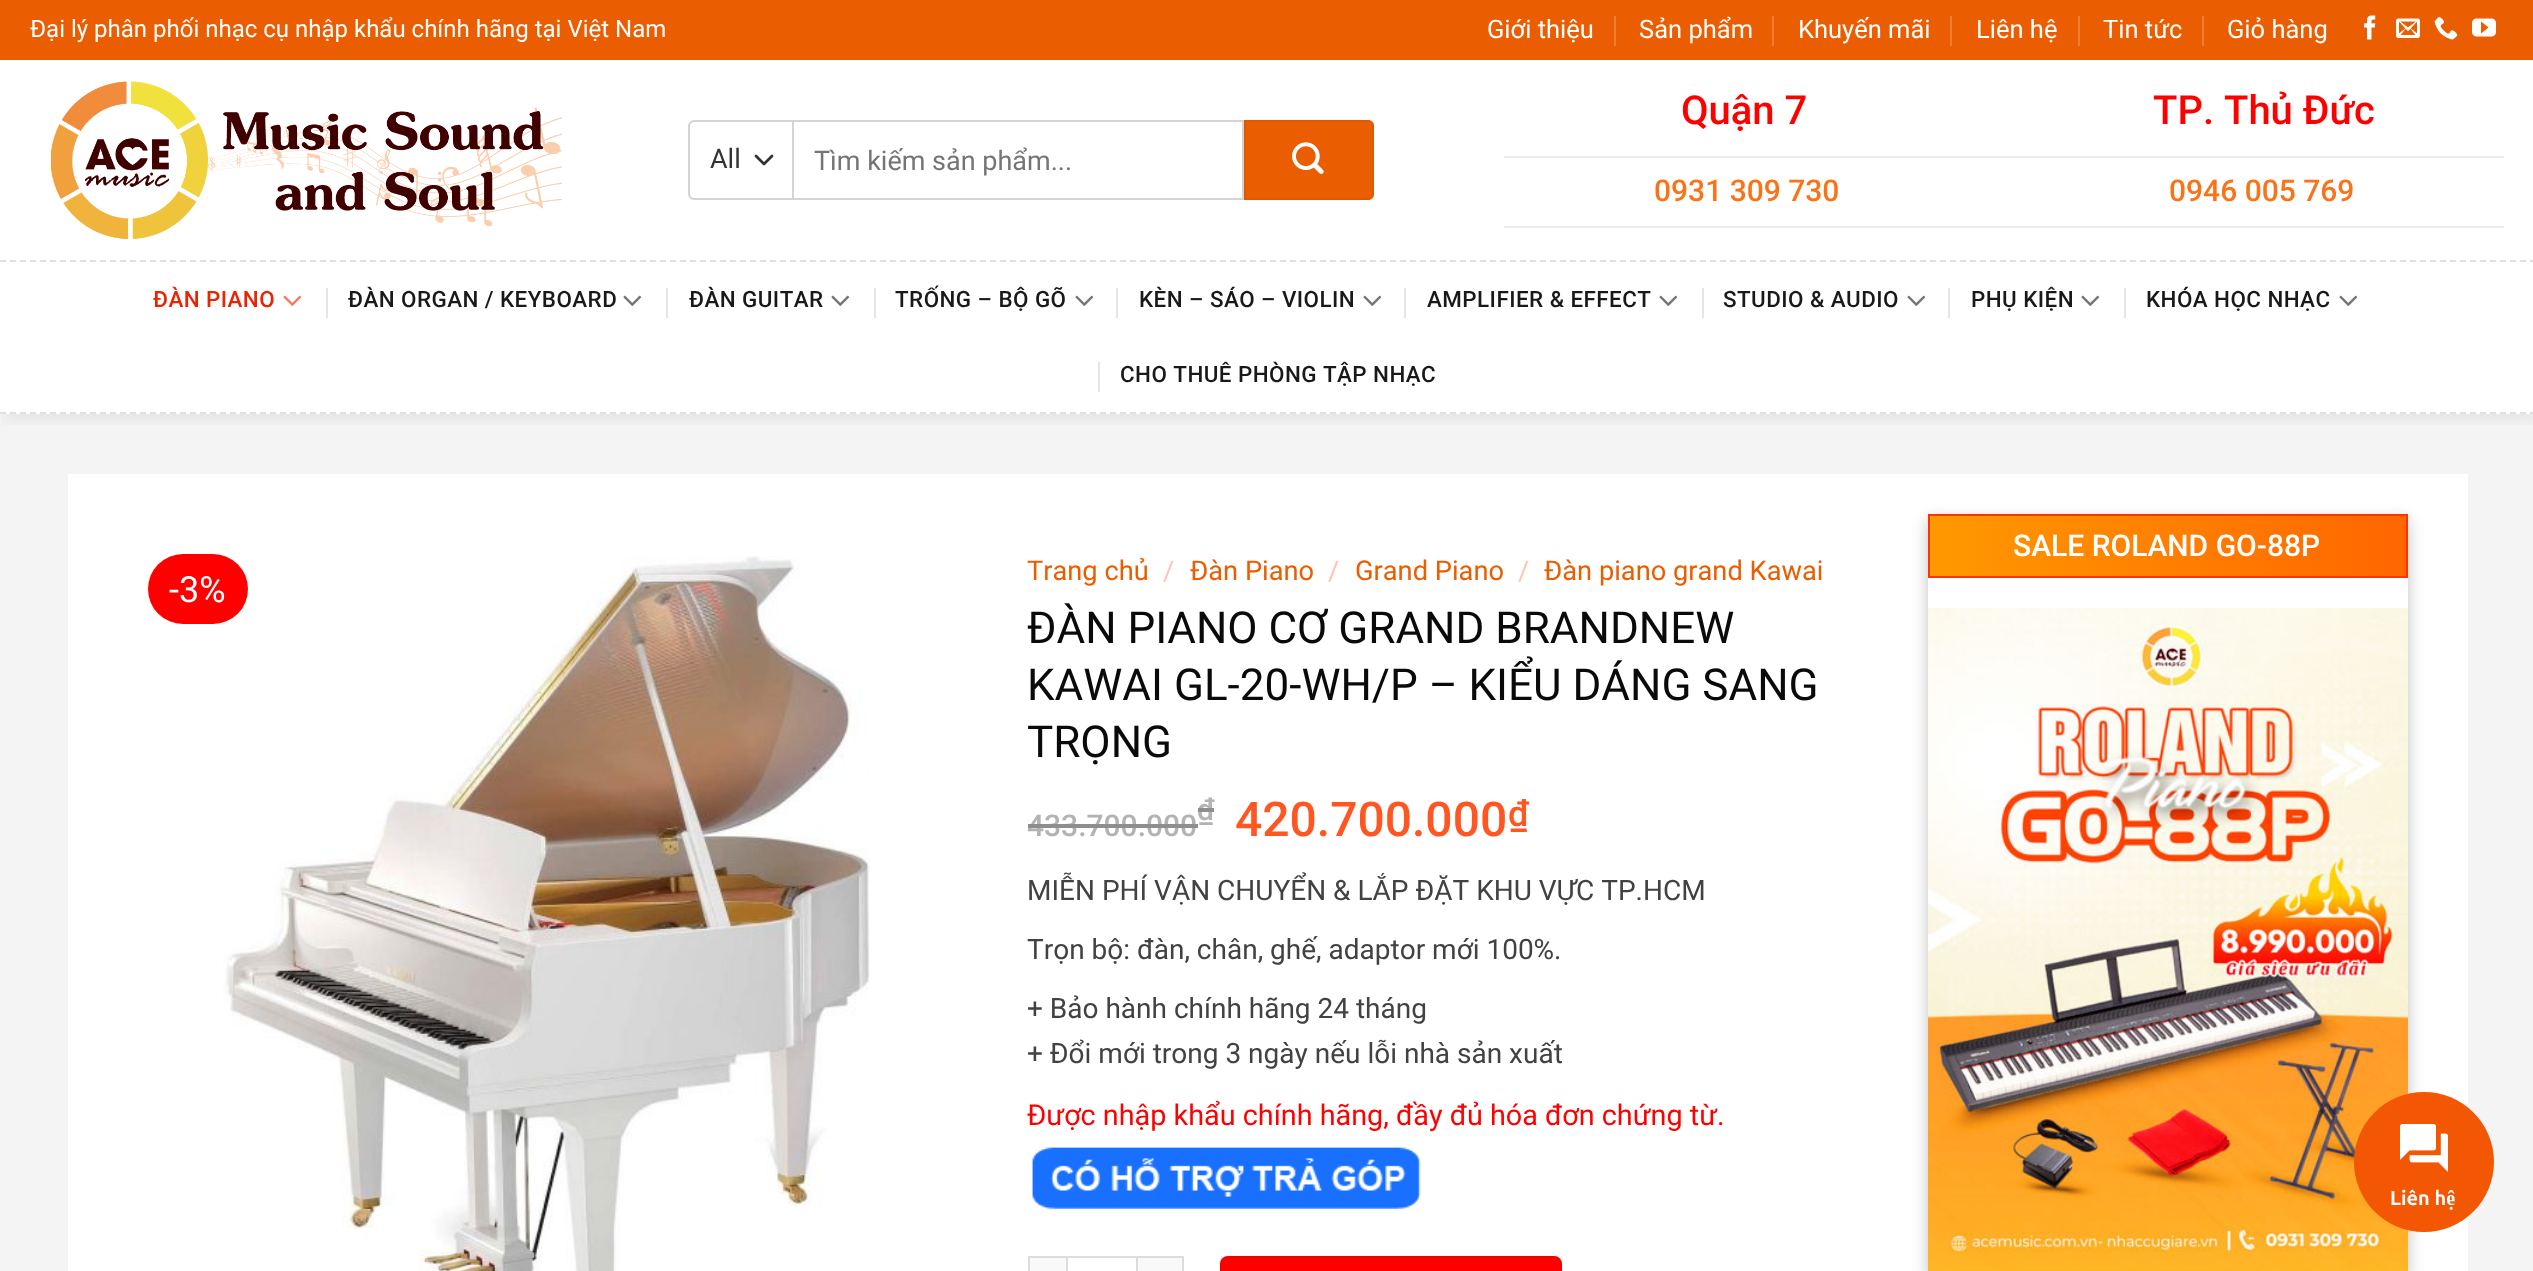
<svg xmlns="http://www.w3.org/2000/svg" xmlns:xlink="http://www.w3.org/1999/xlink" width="2533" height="1271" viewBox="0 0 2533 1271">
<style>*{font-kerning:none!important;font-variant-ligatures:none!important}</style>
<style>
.cls-1{font:24px Roboto;fill:#ffffff}
.cls-2{font:25.5px Roboto;fill:#ffffff}
.cls-3{font:27px Roboto;fill:#333333}
.cls-4{font:27px Roboto;fill:#757575}
.cls-5{font:500 40px Roboto;fill:#ff0000}
.cls-6{font:500 30px Roboto;fill:#fa7319}
.cls-7{font:500 22.4px Roboto;letter-spacing:0.45px;fill:#e72503}
.cls-8{font:500 22.4px Roboto;letter-spacing:0.45px;fill:#191919}
.cls-9{font:500 30px Roboto;fill:#ffffff}
.cls-10{font:36px Roboto;fill:#ffffff}
.cls-11{font:27.25px Roboto;fill:#ea5d00}
.cls-12{font:27.25px Roboto;fill:#ffc4b2}
.cls-13{font:44px Roboto;fill:#0a0a0a}
.cls-14{font:500 30px Roboto;fill:#b3b3b3}
.cls-15{font:500 48px Roboto;fill:#ff5622}
.cls-16{font:500 36px Roboto;fill:#ff5622}
.cls-17{font:28px Roboto;fill:#424242}
.cls-18{font:28.8px Roboto;fill:#ff0000}
.cls-19{font:bold 20px Ubuntu;fill:#ffffff}
</style>
<defs>
<clipPath id="clip1"><rect x="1" y="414" width="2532" height="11"/></clipPath>
<clipPath id="clip2"><path d="M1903 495H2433V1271H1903ZM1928 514H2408V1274H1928Z" clip-rule="evenodd"/></clipPath>
<linearGradient id="g1" gradientUnits="userSpaceOnUse" x1="1930" y1="546" x2="2406" y2="546"><stop offset="0" stop-color="#ff9900"/><stop offset="1" stop-color="#ff6600"/></linearGradient>
</defs>
<rect width="100%" height="100%" fill="#ffffff"/>
<rect fill="#f4f4f4" x="0" y="414" width="2533" height="857"/>
<g clip-path="url(#clip1)">
<rect fill="#000000" fill-opacity="0.08" filter="blur(10px)" x="4" y="4" width="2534" height="414"/>
</g>
<rect fill="#ea5d00" x="0" y="0" width="2533" height="60"/>
<rect fill="#ee7d33" x="1614" y="16" width="2" height="30"/>
<rect fill="#ee7d33" x="1772" y="16" width="2" height="30"/>
<rect fill="#ee7d33" x="1950" y="16" width="2" height="30"/>
<rect fill="#ee7d33" x="2078" y="16" width="2" height="30"/>
<rect fill="#ee7d33" x="2202" y="16" width="2" height="30"/>
<image xlink:href="image0.png" x="2364" y="15" width="12" height="25"/>
<image xlink:href="image1.png" x="2396" y="18" width="24" height="20"/>
<image xlink:href="image2.png" x="2434" y="17" width="24" height="23"/>
<image xlink:href="image3.png" x="2472" y="18" width="24" height="19"/>
<image xlink:href="image4.png" x="50" y="81" width="512" height="159"/>
<path fill="none" stroke="#333333" stroke-width="2.7" stroke-linecap="round" stroke-linejoin="round" d="M756 156L764 164L772 156"/>
<path fill="#d4d4d4" fill-rule="evenodd" d="M694 120H792V200H694C691 200 688 197 688 194V126C688 123 691 120 694 120ZM694 122H792V198H694C692 198 690 196 690 194V126C690 124 692 122 694 122Z"/>
<rect fill="none" stroke="#d4d4d4" stroke-width="2" x="793" y="121" width="450" height="78"/>
<path fill="#ea5d00" d="M1244 120H1368C1371.5 120 1374 122.5 1374 126V194C1374 197.5 1371.5 200 1368 200H1244Z"/>
<rect fill="none" stroke="#000000" stroke-opacity="0.05" stroke-width="2" x="1245" y="121" width="128" height="78"/>
<image xlink:href="image5.png" x="1292" y="142" width="32" height="32"/>
<rect fill="#ececec" x="1504" y="156" width="1000" height="2"/>
<rect fill="#ececec" x="1504" y="226" width="1000" height="2"/>
<path fill="none" stroke="#e0e0e0" stroke-width="2" stroke-dasharray="6 4" d="M0 261H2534"/>
<path fill="none" stroke="#e0e0e0" stroke-width="2" stroke-dasharray="6 4" d="M0 413H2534"/>
<image xlink:href="image6.png" x="283" y="295" width="19" height="11"/>
<rect fill="#e6e6e6" x="326" y="288" width="2" height="30"/>
<image xlink:href="image7.png" x="623" y="295" width="19" height="11"/>
<rect fill="#e6e6e6" x="666" y="288" width="2" height="30"/>
<image xlink:href="image7.png" x="831" y="295" width="19" height="11"/>
<rect fill="#e6e6e6" x="874" y="288" width="2" height="30"/>
<image xlink:href="image7.png" x="1075" y="295" width="19" height="11"/>
<rect fill="#e6e6e6" x="1116" y="288" width="2" height="30"/>
<image xlink:href="image7.png" x="1363" y="295" width="19" height="11"/>
<rect fill="#e6e6e6" x="1404" y="288" width="2" height="30"/>
<image xlink:href="image7.png" x="1659" y="295" width="19" height="11"/>
<rect fill="#e6e6e6" x="1702" y="288" width="2" height="30"/>
<image xlink:href="image7.png" x="1907" y="295" width="19" height="11"/>
<rect fill="#e6e6e6" x="1948" y="288" width="2" height="30"/>
<image xlink:href="image7.png" x="2081" y="295" width="19" height="11"/>
<rect fill="#e6e6e6" x="2124" y="288" width="2" height="30"/>
<image xlink:href="image7.png" x="2339" y="295" width="19" height="11"/>
<rect fill="#e6e6e6" x="1098" y="362" width="2" height="30"/>
<rect fill="#ffffff" x="68" y="474" width="2400" height="797"/>
<g clip-path="url(#clip2)">
<rect fill="#000000" fill-opacity="0.24" filter="blur(8px)" x="1928" y="520" width="480" height="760"/>
</g>
<rect fill="url(#g1)" x="1930" y="516" width="476" height="60"/>
<rect fill="none" stroke="#ff3300" stroke-width="2" x="1929" y="515" width="478" height="62"/>
<image xlink:href="image8.png" x="1928" y="608" width="480" height="663"/>
<image xlink:href="image9.png" x="223" y="556" width="647" height="715"/>
<rect fill="#ff0000" x="148" y="554" width="100" height="70" rx="35"/>
<image xlink:href="image10.png" x="1032" y="1147" width="389" height="63"/>
<rect fill="#f9f9f9" x="1030" y="1258" width="36" height="13"/>
<rect fill="#dddddd" x="1028" y="1256" width="38" height="2"/>
<rect fill="#dddddd" x="1028" y="1256" width="2" height="15"/>
<rect fill="none" stroke="#dddddd" stroke-width="2" x="1067" y="1257" width="70" height="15"/>
<rect fill="#f9f9f9" x="1138" y="1258" width="44" height="13"/>
<rect fill="#dddddd" x="1138" y="1256" width="46" height="2"/>
<rect fill="#dddddd" x="1182" y="1256" width="2" height="15"/>
<rect fill="#ff0000" x="1220" y="1256" width="342" height="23" rx="8"/>
<rect fill="none" stroke="#000000" stroke-opacity="0.05" stroke-width="2" x="1221" y="1257" width="340" height="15"/>
<circle fill="#f35704" cx="2424" cy="1162" r="70"/>
<image xlink:href="image11.png" x="2400" y="1124" width="48" height="48"/>
<text class="cls-1" x="30" y="37">Đại lý phân phối nhạc cụ nhập khẩu chính hãng tại Việt Nam</text>
<text class="cls-2" x="1487" y="38">Giới thiệu</text>
<text class="cls-2" x="1639" y="38">Sản phẩm</text>
<text class="cls-2" x="1798" y="38">Khuyến mãi</text>
<text class="cls-2" x="1976" y="38">Liên hệ</text>
<text class="cls-2" x="2103" y="38">Tin tức</text>
<text class="cls-2" x="2227" y="38">Giỏ hàng</text>
<text class="cls-3" x="710" y="168">All</text>
<text class="cls-4" x="814" y="170">Tìm kiếm sản phẩm...</text>
<text class="cls-5" x="1681" y="124">Quận 7</text>
<text class="cls-5" x="2153" y="124">TP.</text>
<text class="cls-5" x="2224" y="124">Thủ Đức</text>
<text class="cls-6" x="1654" y="201">0931 309 730</text>
<text class="cls-6" x="2169" y="201">0946 005 769</text>
<text class="cls-7" x="153" y="307">ĐÀN PIANO</text>
<text class="cls-8" x="348" y="307">ĐÀN ORGAN / KEYBOARD</text>
<text class="cls-8" x="689" y="307">ĐÀN GUITAR</text>
<text class="cls-8" x="895" y="307">TRỐNG – BỘ GÕ</text>
<text class="cls-8" x="1139" y="307">KÈN – SÁO – VIOLIN</text>
<text class="cls-8" x="1427" y="307">AMPLIFIER &amp; EFFECT</text>
<text class="cls-8" x="1723" y="307">STUDIO &amp; AUDIO</text>
<text class="cls-8" x="1971" y="307">PHỤ KIỆN</text>
<text class="cls-8" x="2146" y="307">KHÓA HỌC NHẠC</text>
<text class="cls-8" x="1120" y="382">CHO THUÊ PHÒNG TẬP NHẠC</text>
<text class="cls-9" x="2013" y="556">SALE ROLAND GO-88P</text>
<text class="cls-10" x="169" y="602">-3%</text>
<text class="cls-11" x="1027" y="580">Trang chủ</text>
<text class="cls-12" x="1163" y="580">/</text>
<text class="cls-11" x="1190" y="580">Đàn Piano</text>
<text class="cls-12" x="1328" y="580">/</text>
<text class="cls-11" x="1355" y="580">Grand Piano</text>
<text class="cls-12" x="1518" y="580">/</text>
<text class="cls-11" x="1544" y="580">Đàn piano grand Kawai</text>
<text class="cls-13"><tspan x="1027" y="643">ĐÀN PIANO CƠ GRAND BRANDNEW</tspan><tspan x="1027" y="700">KAWAI GL-20-WH/P – KIỂU DÁNG SANG</tspan><tspan x="1027" y="757">TRỌNG</tspan></text>
<text class="cls-14" x="1027" y="836">433.700.000</text>
<rect fill="#8e8e8e" x="1028" y="824" width="170" height="4"/>
<text class="cls-14" x="1197" y="820">₫</text>
<rect fill="#8e8e8e" x="1198" y="808" width="16" height="4"/>
<text class="cls-15" x="1235" y="836">420.700.000</text>
<text class="cls-16" x="1508" y="826">₫</text>
<text class="cls-17" x="1027" y="900">MIỄN PHÍ VẬN CHUYỂN &amp; LẮP ĐẶT KHU VỰC TP.HCM</text>
<text class="cls-17" x="1027" y="959">Trọn bộ: đàn, chân, ghế, adaptor mới 100%.</text>
<text class="cls-17"><tspan x="1027" y="1018">+ Bảo hành chính hãng 24 tháng</tspan><tspan x="1027" y="1063">+ Đổi mới trong 3 ngày nếu lỗi nhà sản xuất</tspan></text>
<text class="cls-18" x="1027" y="1125">Được nhập khẩu chính hãng, đầy đủ hóa đơn chứng từ.</text>
<text class="cls-19" x="2390" y="1205">Liên hệ</text>
</svg>
